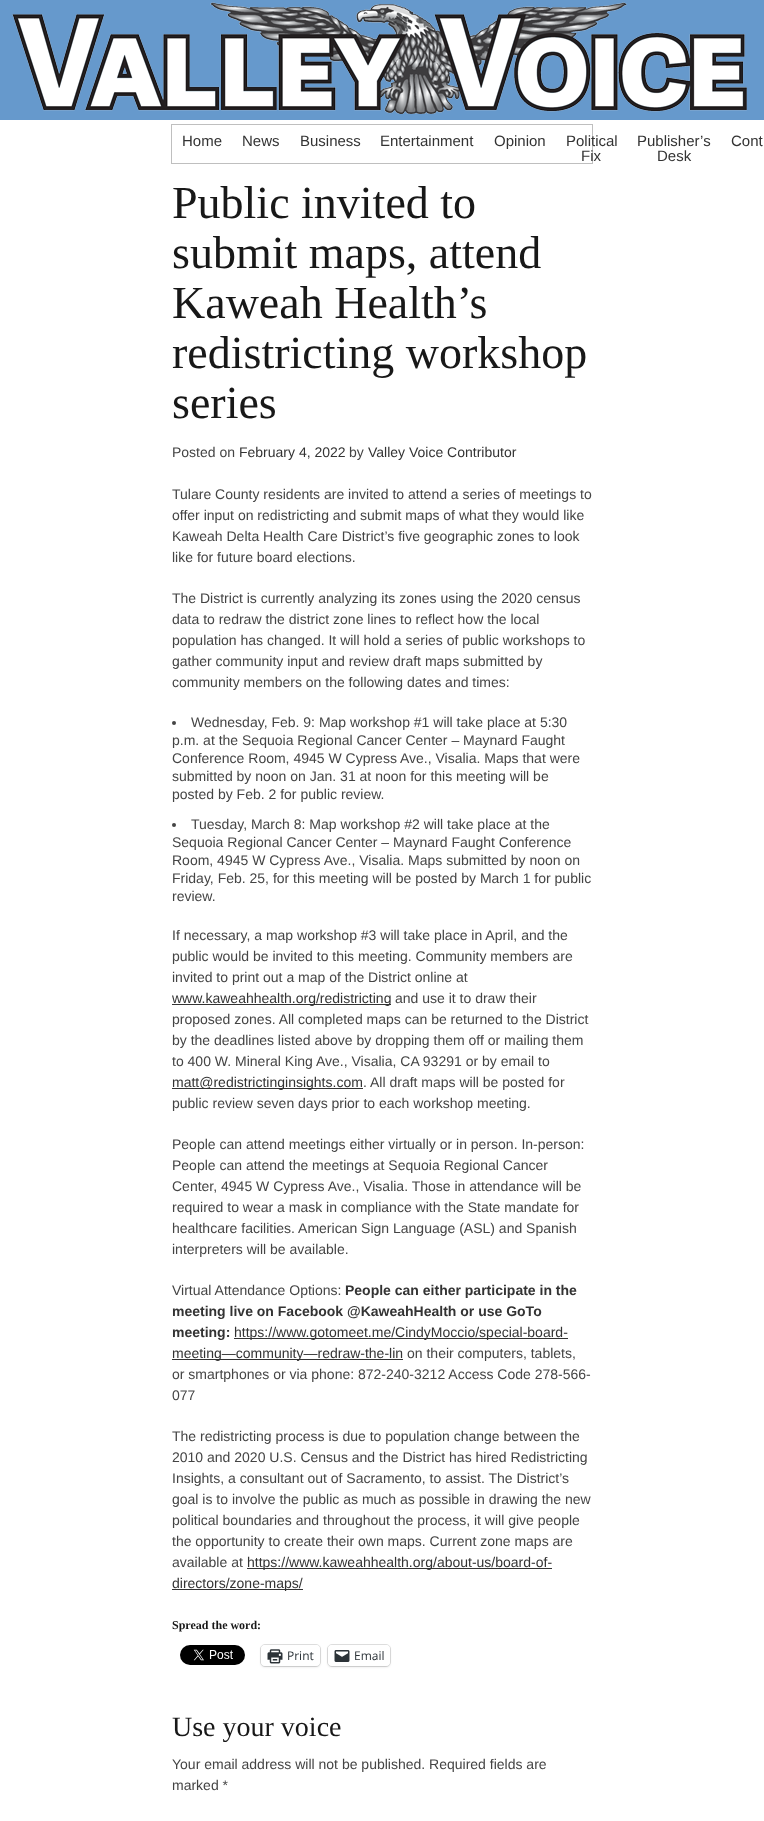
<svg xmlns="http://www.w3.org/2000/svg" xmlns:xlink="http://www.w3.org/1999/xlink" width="764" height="1821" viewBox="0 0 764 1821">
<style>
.cls-1{font:15px Liberation Sans;fill:#333333}
.cls-2{font:46px Liberation Serif;fill:#181818}
.cls-3{font:14px Liberation Sans;fill:#444444}
.cls-4{font:14px Liberation Sans;fill:#333333}
.cls-5{font:bold 14px Liberation Sans;fill:#333333}
.cls-6{font:bold 12px Liberation Serif;fill:#181818}
.cls-7{font:12px Open Sans;fill:#2c3338}
.cls-8{font:28px Liberation Serif;fill:#181818}
</style>
<rect width="100%" height="100%" fill="#ffffff"/>
<rect fill="#6699cc" x="0" y="0" width="764" height="120"/>
<image xlink:href="image0.png" x="12" y="2" width="735" height="112"/>
<rect fill="none" stroke="#bfbfbf" x="171.5" y="124.5" width="421" height="39"/>
<circle fill="#444444" cx="174" cy="723" r="2"/>
<circle fill="#444444" cx="174" cy="825" r="2"/>
<rect fill="#333333" x="172" y="1004" width="219" height="1"/>
<rect fill="#333333" x="172" y="1088" width="191" height="1"/>
<rect fill="#333333" x="234" y="1338" width="334" height="1"/>
<rect fill="#333333" x="172" y="1359" width="231" height="1"/>
<rect fill="#333333" x="247" y="1568" width="305" height="1"/>
<rect fill="#333333" x="172" y="1589" width="131" height="1"/>
<image xlink:href="image1.png" x="180" y="1645" width="65" height="20"/>
<rect fill="none" stroke="#e0e0e0" x="260.5" y="1644.5" width="60" height="22" rx="4.5"/>
<rect fill="#000000" fill-opacity="0.12" filter="blur(1px)" x="261" y="1646" width="59" height="21" rx="4"/>
<rect fill="#ffffff" x="261" y="1645" width="59" height="21" rx="4"/>
<image xlink:href="image2.png" x="267" y="1649" width="16" height="15"/>
<rect fill="none" stroke="#e0e0e0" x="327.5" y="1644.5" width="63" height="22" rx="4.5"/>
<rect fill="#000000" fill-opacity="0.12" filter="blur(1px)" x="328" y="1646" width="62" height="21" rx="4"/>
<rect fill="#ffffff" x="328" y="1645" width="62" height="21" rx="4"/>
<image xlink:href="image3.png" x="334" y="1650" width="16" height="12"/>
<text class="cls-1" x="182" y="146">Home</text>
<text class="cls-1" x="242" y="146">News</text>
<text class="cls-1" x="300" y="146">Business</text>
<text class="cls-1" x="380" y="146">Entertainment</text>
<text class="cls-1" x="494" y="146">Opinion</text>
<text class="cls-1" x="566" y="146">Political</text>
<text class="cls-1" x="581" y="161">Fix</text>
<text class="cls-1" x="637" y="146">Publisher’s</text>
<text class="cls-1" x="657" y="161">Desk</text>
<text class="cls-1" x="731" y="146">Cont</text>
<text class="cls-2"><tspan x="172" y="218">Public invited to</tspan><tspan x="172" y="268">submit maps, attend</tspan><tspan x="172" y="318">Kaweah Health’s</tspan><tspan x="172" y="368">redistricting workshop</tspan><tspan x="172" y="418">series</tspan></text>
<text class="cls-3" x="172" y="457">Posted on</text>
<text class="cls-4" x="239" y="457">February 4, 2022</text>
<text class="cls-3" x="349" y="457">by</text>
<text class="cls-4" x="368" y="457">Valley Voice Contributor</text>
<text class="cls-3"><tspan x="172" y="499">Tulare County residents are invited to attend a series of meetings to</tspan><tspan x="172" y="520">offer input on redistricting and submit maps of what they would like</tspan><tspan x="172" y="541">Kaweah Delta Health Care District’s five geographic zones to look</tspan><tspan x="172" y="562">like for future board elections.</tspan></text>
<text class="cls-3"><tspan x="172" y="603">The District is currently analyzing its zones using the 2020 census</tspan><tspan x="172" y="624">data to redraw the district zone lines to reflect how the local</tspan><tspan x="172" y="645">population has changed. It will hold a series of public workshops to</tspan><tspan x="172" y="666">gather community input and review draft maps submitted by</tspan><tspan x="172" y="687">community members on the following dates and times:</tspan></text>
<text class="cls-3" x="191" y="727">Wednesday, Feb. 9: Map workshop #1 will take place at 5:30</text>
<text class="cls-3"><tspan x="172" y="745">p.m. at the Sequoia Regional Cancer Center – Maynard Faught</tspan><tspan x="172" y="763">Conference Room, 4945 W Cypress Ave., Visalia. Maps that were</tspan><tspan x="172" y="781">submitted by noon on Jan. 31 at noon for this meeting will be</tspan><tspan x="172" y="799">posted by Feb. 2 for public review.</tspan></text>
<text class="cls-3" x="191" y="829">Tuesday, March 8: Map workshop #2 will take place at the</text>
<text class="cls-3"><tspan x="172" y="847">Sequoia Regional Cancer Center – Maynard Faught Conference</tspan><tspan x="172" y="865">Room, 4945 W Cypress Ave., Visalia. Maps submitted by noon on</tspan><tspan x="172" y="883">Friday, Feb. 25, for this meeting will be posted by March 1 for public</tspan><tspan x="172" y="901">review.</tspan></text>
<text class="cls-3"><tspan x="172" y="940">If necessary, a map workshop #3 will take place in April, and the</tspan><tspan x="172" y="961">public would be invited to this meeting. Community members are</tspan><tspan x="172" y="982">invited to print out a map of the District online at</tspan></text>
<text class="cls-4" x="172" y="1003">www.kaweahhealth.org/redistricting</text>
<text class="cls-3" x="395" y="1003">and use it to draw their</text>
<text class="cls-3"><tspan x="172" y="1024">proposed zones. All completed maps can be returned to the District</tspan><tspan x="172" y="1045">by the deadlines listed above by dropping them off or mailing them</tspan><tspan x="172" y="1066">to 400 W. Mineral King Ave., Visalia, CA 93291 or by email to</tspan></text>
<text class="cls-4" x="172" y="1087">matt@redistrictinginsights.com</text>
<text class="cls-3" x="363" y="1087">. All draft maps will be posted for</text>
<text class="cls-3" x="172" y="1108">public review seven days prior to each workshop meeting.</text>
<text class="cls-3"><tspan x="172" y="1149">People can attend meetings either virtually or in person. In-person:</tspan><tspan x="172" y="1170">People can attend the meetings at Sequoia Regional Cancer</tspan><tspan x="172" y="1191">Center, 4945 W Cypress Ave., Visalia. Those in attendance will be</tspan><tspan x="172" y="1212">required to wear a mask in compliance with the State mandate for</tspan><tspan x="172" y="1233">healthcare facilities. American Sign Language (ASL) and Spanish</tspan><tspan x="172" y="1254">interpreters will be available.</tspan></text>
<text class="cls-3" x="172" y="1295">Virtual Attendance Options:</text>
<text class="cls-5" x="345" y="1295">People can either participate in the</text>
<text class="cls-5"><tspan x="172" y="1316">meeting live on Facebook @KaweahHealth or use GoTo</tspan><tspan x="172" y="1337">meeting:</tspan></text>
<text class="cls-4" x="234" y="1337">https://www.gotomeet.me/CindyMoccio/special-board-</text>
<text class="cls-4" x="172" y="1358">meeting—community—redraw-the-lin</text>
<text class="cls-3" x="407" y="1358">on their computers, tablets,</text>
<text class="cls-3"><tspan x="172" y="1379">or smartphones or via phone: 872-240-3212 Access Code 278-566-</tspan><tspan x="172" y="1400">077</tspan></text>
<text class="cls-3"><tspan x="172" y="1441">The redistricting process is due to population change between the</tspan><tspan x="172" y="1462">2010 and 2020 U.S. Census and the District has hired Redistricting</tspan><tspan x="172" y="1483">Insights, a consultant out of Sacramento, to assist. The District’s</tspan><tspan x="172" y="1504">goal is to involve the public as much as possible in drawing the new</tspan><tspan x="172" y="1525">political boundaries and throughout the process, it will give people</tspan><tspan x="172" y="1546">the opportunity to create their own maps. Current zone maps are</tspan><tspan x="172" y="1567">available at</tspan></text>
<text class="cls-4" x="247" y="1567">https://www.kaweahhealth.org/about-us/board-of-</text>
<text class="cls-4" x="172" y="1588">directors/zone-maps/</text>
<text class="cls-6" x="172" y="1629">Spread the word:</text>
<text class="cls-7" x="287" y="1660">Print</text>
<text class="cls-7" x="354" y="1660">Email</text>
<text class="cls-8" x="172" y="1736">Use your voice</text>
<text class="cls-3"><tspan x="172" y="1769">Your email address will not be published. Required fields are</tspan><tspan x="172" y="1790">marked *</tspan></text>
</svg>
